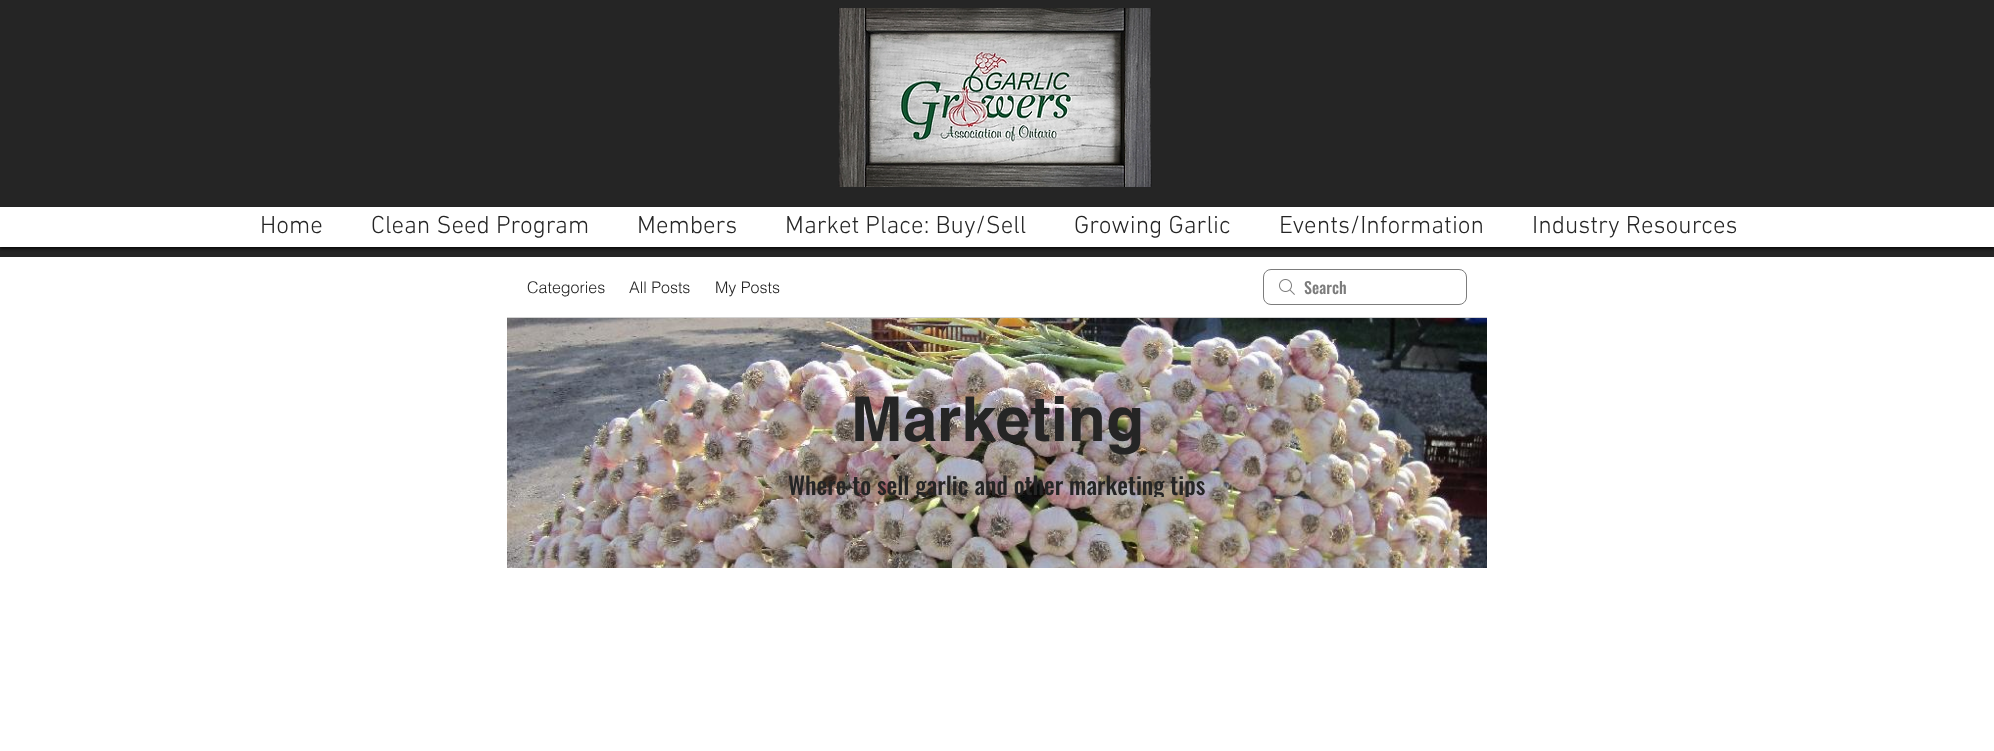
<svg xmlns="http://www.w3.org/2000/svg" xmlns:xlink="http://www.w3.org/1999/xlink" width="1994" height="751" viewBox="0 0 1994 751">
<style>
.cls-1{font:300 25px 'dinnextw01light';fill:#252525}
.cls-2{font:300 16px helvetica;fill:#252525}
.cls-3{font:500 16px Oswald;fill:#7c7c7c}
.cls-4{font:bold 62px helvetica;fill:#252525}
.cls-5{font:500 24px Oswald;fill:#252525}
</style>
<defs>
<clipPath id="clip1"><rect x="657" y="471" width="680" height="26"/></clipPath>
</defs>
<rect width="100%" height="100%" fill="#ffffff"/>
<rect fill="#252525" x="0" y="0" width="1994" height="257"/>
<image xlink:href="image0.png" x="838" y="8" width="314" height="179"/>
<rect fill="#000000" fill-opacity="0.7" filter="blur(1.5px)" x="0" y="209" width="1994" height="40"/>
<rect fill="#ffffff" x="0" y="207" width="1994" height="40"/>
<rect fill="#d3d3d3" x="507" y="317" width="980" height="1"/>
<image xlink:href="image1.png" x="1279" y="279" width="16" height="16"/>
<rect fill="none" stroke="#7c7c7c" x="1263.5" y="269.5" width="203" height="35" rx="7.5"/>
<image xlink:href="image2.png" x="507" y="318" width="980" height="250"/>
<text class="cls-1" x="260" y="233">Home</text>
<text class="cls-1" x="371" y="233">Clean Seed Program</text>
<text class="cls-1" x="637" y="233">Members</text>
<text class="cls-1" x="785" y="233">Market Place: Buy/Sell</text>
<text class="cls-1" x="1074" y="233">Growing Garlic</text>
<text class="cls-1" x="1279" y="233">Events/Information</text>
<text class="cls-1" x="1532" y="233">Industry Resources</text>
<text class="cls-2" x="527" y="293">Categories</text>
<text class="cls-2" x="629" y="293">All Posts</text>
<text class="cls-2" x="715" y="293">My Posts</text>
<text class="cls-3" x="1304" y="294">Search</text>
<text class="cls-4" x="851" y="441">Marketing</text>
<g clip-path="url(#clip1)">
<text class="cls-5" x="788" y="495">Where to sell garlic and other marketing tips</text>
</g>
</svg>
